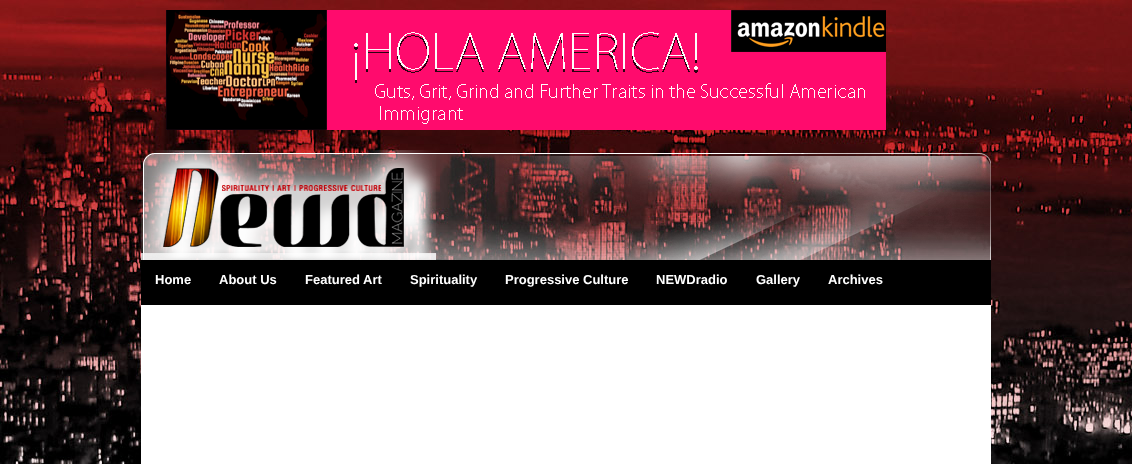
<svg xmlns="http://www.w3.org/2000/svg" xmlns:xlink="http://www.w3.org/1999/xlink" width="1132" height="464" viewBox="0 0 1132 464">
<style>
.cls-1{font:bold 13px Liberation Sans;fill:#ffffff}
</style>
<rect width="100%" height="100%" fill="#ffffff"/>
<image xlink:href="image0.png" x="0" y="0" width="1132" height="464"/>
<image xlink:href="image1.png" x="166" y="10" width="720" height="120"/>
<image xlink:href="image2.png" x="143" y="153" width="848" height="107"/>
<image xlink:href="image3.png" x="141" y="150" width="295" height="110"/>
<rect fill="#ffffff" x="141" y="305" width="850" height="159"/>
<rect fill="#000000" x="141" y="260" width="850" height="45"/>
<text class="cls-1" x="155" y="284">Home</text>
<text class="cls-1" x="219" y="284">About Us</text>
<text class="cls-1" x="305" y="284">Featured Art</text>
<text class="cls-1" x="410" y="284">Spirituality</text>
<text class="cls-1" x="505" y="284">Progressive Culture</text>
<text class="cls-1" x="656" y="284">NEWDradio</text>
<text class="cls-1" x="756" y="284">Gallery</text>
<text class="cls-1" x="828" y="284">Archives</text>
</svg>
